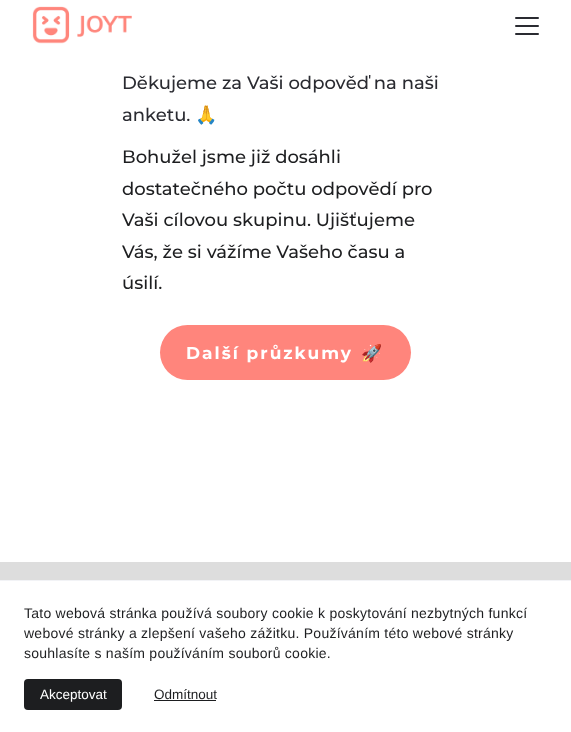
<svg xmlns="http://www.w3.org/2000/svg" xmlns:xlink="http://www.w3.org/1999/xlink" width="571" height="732" viewBox="0 0 571 732">
<style>
.cls-1{font:100 18px Montserrat;fill:#2a2b31}
.cls-2{font:18px Noto Color Emoji;fill:#1d1e20}
.cls-3{font:100 18px Montserrat;fill:#1d1e20}
.cls-4{font:100 17px 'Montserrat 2';letter-spacing:2px;fill:#ffffff}
.cls-5{font:bold 17px Noto Color Emoji;letter-spacing:2px;fill:#ffffff}
.cls-6{font:14px Liberation Sans;letter-spacing:0.25px;fill:#1d1e20}
.cls-7{font:13.5px Liberation Sans;fill:#ffffff}
.cls-8{font:13.5px Liberation Sans;fill:#1d1e20}
</style>
<rect width="100%" height="100%" fill="#ffffff"/>
<image xlink:href="image0.png" x="32" y="6" width="100" height="38"/>
<rect fill="#2a2b31" x="515" y="17" width="24" height="2" rx="1"/>
<rect fill="#2a2b31" x="515" y="25" width="24" height="2" rx="1"/>
<rect fill="#2a2b31" x="515" y="33" width="24" height="2" rx="1"/>
<rect fill="#ff857c" x="160" y="325" width="251" height="55" rx="27.5"/>
<rect fill="#dddddd" x="0" y="562" width="571" height="18"/>
<rect fill="#f2f3f6" x="0" y="580" width="571" height="1"/>
<rect fill="#1d1e20" x="24" y="679" width="98" height="31" rx="4"/>
<rect fill="#1d1e20" x="154" y="700" width="62" height="1"/>
<text class="cls-1"><tspan x="122" y="89">Děkujeme za Vaši odpověď na naši</tspan><tspan x="122" y="121">anketu.</tspan></text>
<text class="cls-2" x="195" y="121">🙏</text>
<text class="cls-3"><tspan x="122" y="163">Bohužel jsme již dosáhli</tspan><tspan x="122" y="195">dostatečného počtu odpovědí pro</tspan><tspan x="122" y="226">Vaši cílovou skupinu. Ujišťujeme</tspan><tspan x="122" y="258">Vás, že si vážíme Vašeho času a</tspan><tspan x="122" y="289">úsilí.</tspan></text>
<text class="cls-4" x="186" y="359">Další průzkumy</text>
<text class="cls-5" x="361" y="359">🚀</text>
<text class="cls-6"><tspan x="24" y="618">Tato webová stránka používá soubory cookie k poskytování nezbytných funkcí</tspan><tspan x="24" y="638">webové stránky a zlepšení vašeho zážitku. Používáním této webové stránky</tspan><tspan x="24" y="658">souhlasíte s naším používáním souborů cookie.</tspan></text>
<text class="cls-7" x="40" y="699">Akceptovat</text>
<text class="cls-8" x="154" y="699">Odmítnout</text>
</svg>
